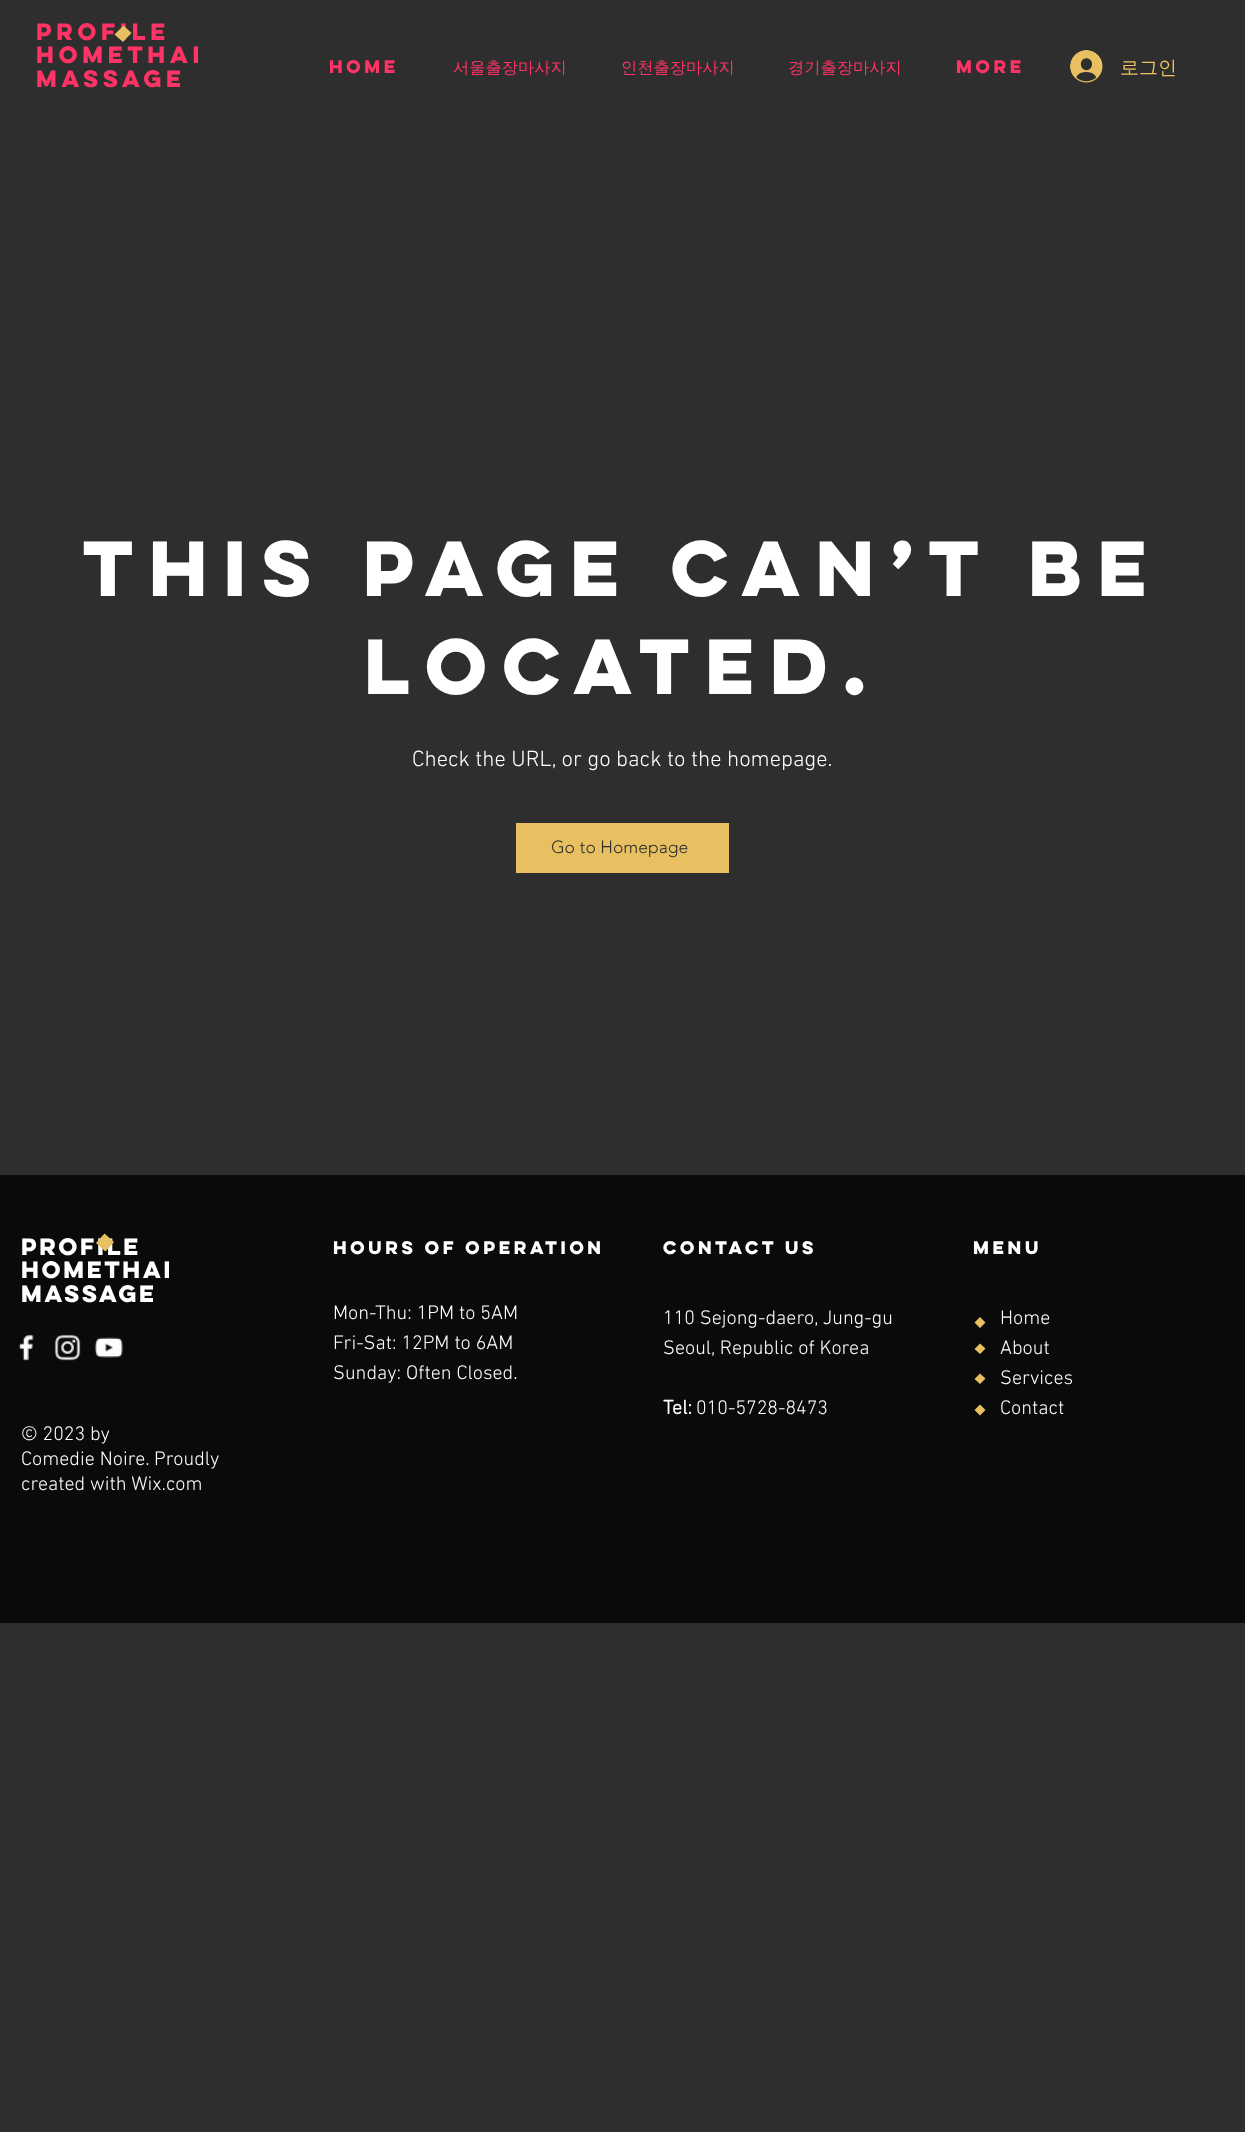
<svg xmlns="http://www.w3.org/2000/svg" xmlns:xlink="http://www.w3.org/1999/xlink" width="1245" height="2132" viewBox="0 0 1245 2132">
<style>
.cls-1{font:bold 21.25px 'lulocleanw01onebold';fill:#ff3366}
.cls-2{font:bold 16.25px 'lulocleanw01onebold';fill:#ff3366}
.cls-3{font:500 16.25px WenQuanYi Zen Hei;fill:#ff3366}
.cls-4{font:500 19px WenQuanYi Zen Hei;fill:#e8c061}
.cls-5{font:bold 70px 'lulocleanw01onebold';fill:#ffffff}
.cls-6{font:300 22.5px 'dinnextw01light';fill:#ffffff}
.cls-7{font:300 17.5px 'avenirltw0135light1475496';fill:#2d2e2d}
.cls-8{font:bold 21.25px 'lulocleanw01onebold';letter-spacing:-2px;fill:#ffffff}
.cls-9{font:300 20px 'dinnextw01light';fill:#ffffff}
.cls-10{font:bold 16.25px 'lulocleanw01onebold';fill:#ffffff}
.cls-11{font:bold 20px 'dinnextw01light';fill:#ffffff}
</style>
<rect width="100%" height="100%" fill="#2d2e2d"/>
<image xlink:href="image0.png" x="1070" y="50" width="33" height="33"/>
<rect fill="#e8c061" x="516" y="823" width="213" height="50"/>
<rect fill="#0a0a0a" x="0" y="1175" width="1245" height="448"/>
<image xlink:href="image1.png" x="18" y="1334" width="16" height="27"/>
<image xlink:href="image2.png" x="54" y="1334" width="27" height="27"/>
<image xlink:href="image3.png" x="94" y="1337" width="29" height="21"/>
<path fill="#e8c061" d="M985.5 1322.5L980 1328L974.5 1322.5L980 1317ZM985.5 1348.5L980 1354L974.5 1349L980 1343.5Z"/>
<path fill="#e8c061" d="M985.5 1378.5L980 1384L974.5 1379L980 1373.5ZM985.5 1410L980 1415.5L974.5 1410L980 1404.5Z"/>
<text class="cls-1"><tspan x="36" y="40">PROFILE</tspan><tspan x="36" y="63">HOMETHAI</tspan><tspan x="36" y="87">MASSAGE</tspan></text>
<path fill="#e8c061" d="M131.5 33L123 42L114.5 34.5L123.5 25.5Z"/>
<text class="cls-2" x="329" y="73">HOME</text>
<text class="cls-3" x="453" y="73">서울출장마사지</text>
<text class="cls-3" x="621" y="73">인천출장마사지</text>
<text class="cls-3" x="788" y="73">경기출장마사지</text>
<text class="cls-2" x="956" y="73">More</text>
<text class="cls-4" x="1120" y="74">로그인</text>
<text class="cls-5" x="83" y="596">This Page Can’t Be</text>
<text class="cls-5" x="364" y="694">Located.</text>
<text class="cls-6" x="412" y="766">Check the URL, or go back to the homepage.</text>
<text class="cls-7" x="551" y="853">Go to Homepage</text>
<text class="cls-8" x="21" y="1255">PROFILE</text>
<path fill="#e8c061" d="M114 1242L105.5 1251.5L96 1243L104.5 1233.5Z"/>
<text class="cls-8"><tspan x="21" y="1278">HOMETHAI</tspan><tspan x="21" y="1302">MASSAGE</tspan></text>
<text class="cls-9"><tspan x="21" y="1440">© 2023 by</tspan><tspan x="21" y="1465">Comedie Noire. Proudly</tspan><tspan x="21" y="1490">created with Wix.com</tspan></text>
<text class="cls-10" x="333" y="1254">Hours of operation</text>
<text class="cls-9"><tspan x="333" y="1319">Mon-Thu: 1PM to 5AM</tspan><tspan x="333" y="1349">Fri-Sat: 12PM to 6AM</tspan><tspan x="333" y="1379">Sunday: Often Closed.</tspan></text>
<text class="cls-10" x="663" y="1254">contact us</text>
<text class="cls-9"><tspan x="663" y="1324">110 Sejong-daero, Jung-gu</tspan><tspan x="663" y="1354">Seoul, Republic of Korea</tspan></text>
<text class="cls-11" x="663" y="1414">Tel:</text>
<text class="cls-9" x="696" y="1414">010-5728-8473</text>
<text class="cls-10" x="973" y="1254">Menu</text>
<text class="cls-9"><tspan x="1000" y="1324">Home</tspan><tspan x="1000" y="1354">About</tspan><tspan x="1000" y="1384">Services</tspan><tspan x="1000" y="1414">Contact</tspan></text>
</svg>
